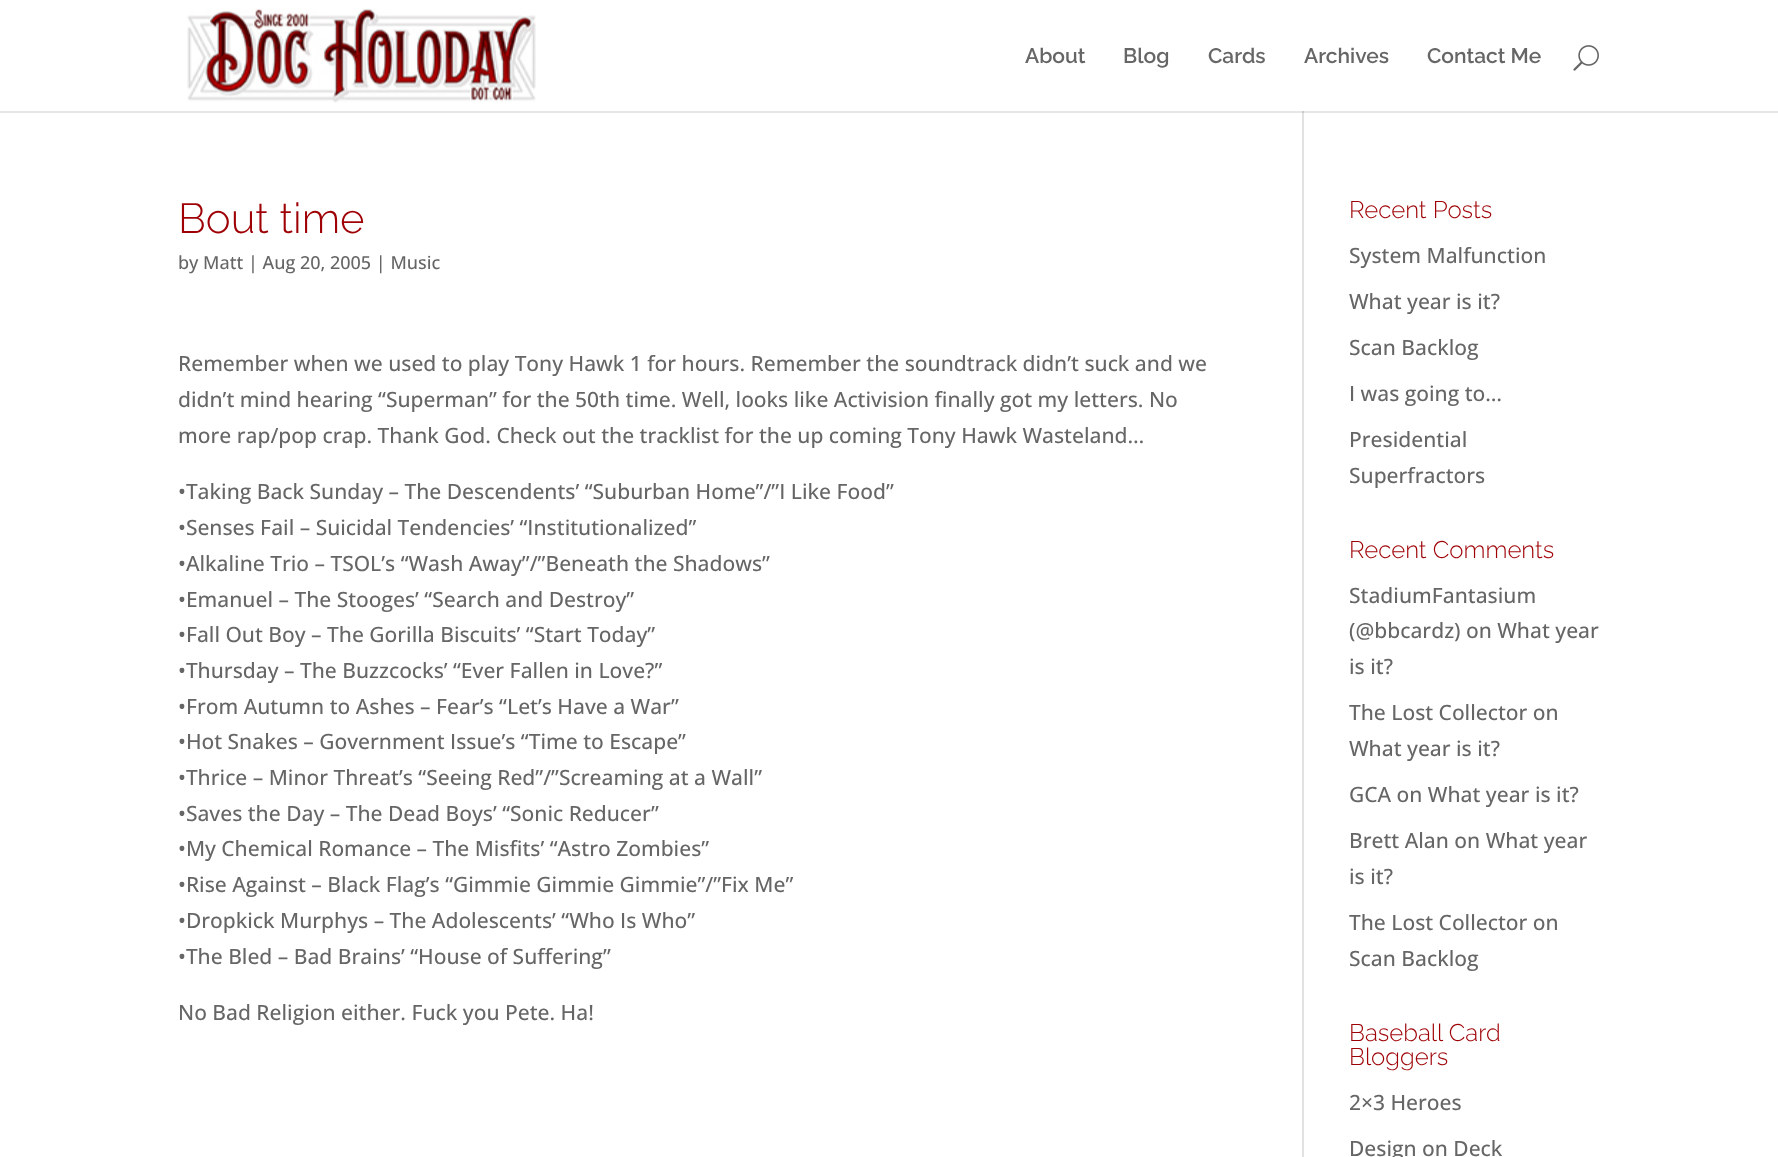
<svg xmlns="http://www.w3.org/2000/svg" xmlns:xlink="http://www.w3.org/1999/xlink" width="1778" height="1157" viewBox="0 0 1778 1157">
<style>
.cls-1{font:600 21px Raleway;fill:#666666}
.cls-2{font:300 42px Raleway;fill:#9e0005}
.cls-3{font:500 18px Open Sans;fill:#666666}
.cls-4{font:500 21px Open Sans;fill:#666666}
.cls-5{font:300 24px Raleway;fill:#9e0005}
</style>
<rect width="100%" height="100%" fill="#ffffff"/>
<rect fill="#e6e6e6" x="0" y="111" width="1778" height="2"/>
<image xlink:href="image0.png" x="187" y="8" width="349" height="95"/>
<image xlink:href="image1.png" x="1573" y="45" width="26" height="26"/>
<rect fill="#e2e2e2" x="1302" y="111" width="2" height="1046"/>
<rect fill="#cbcbcb" x="1302" y="111" width="2" height="2"/>
<text class="cls-1" x="1025" y="63">About</text>
<text class="cls-1" x="1123" y="63">Blog</text>
<text class="cls-1" x="1208" y="63">Cards</text>
<text class="cls-1" x="1304" y="63">Archives</text>
<text class="cls-1" x="1427" y="63">Contact Me</text>
<text class="cls-2" x="178" y="233">Bout time</text>
<text class="cls-3" x="178" y="269">by Matt | Aug 20, 2005 | Music</text>
<text class="cls-4"><tspan x="178" y="371">Remember when we used to play Tony Hawk 1 for hours. Remember the soundtrack didn’t suck and we</tspan><tspan x="178" y="407">didn’t mind hearing “Superman” for the 50th time. Well, looks like Activision finally got my letters. No</tspan><tspan x="178" y="443">more rap/pop crap. Thank God. Check out the tracklist for the up coming Tony Hawk Wasteland…</tspan></text>
<text class="cls-4"><tspan x="178" y="499">•Taking Back Sunday – The Descendents’ “Suburban Home”/”I Like Food”</tspan><tspan x="178" y="535">•Senses Fail – Suicidal Tendencies’ “Institutionalized”</tspan><tspan x="178" y="571">•Alkaline Trio – TSOL’s “Wash Away”/”Beneath the Shadows”</tspan><tspan x="178" y="607">•Emanuel – The Stooges’ “Search and Destroy”</tspan><tspan x="178" y="642">•Fall Out Boy – The Gorilla Biscuits’ “Start Today”</tspan><tspan x="178" y="678">•Thursday – The Buzzcocks’ “Ever Fallen in Love?”</tspan><tspan x="178" y="714">•From Autumn to Ashes – Fear’s “Let’s Have a War”</tspan><tspan x="178" y="749">•Hot Snakes – Government Issue’s “Time to Escape”</tspan><tspan x="178" y="785">•Thrice – Minor Threat’s “Seeing Red”/”Screaming at a Wall”</tspan><tspan x="178" y="821">•Saves the Day – The Dead Boys’ “Sonic Reducer”</tspan><tspan x="178" y="856">•My Chemical Romance – The Misfits’ “Astro Zombies”</tspan><tspan x="178" y="892">•Rise Against – Black Flag’s “Gimmie Gimmie Gimmie”/”Fix Me”</tspan><tspan x="178" y="928">•Dropkick Murphys – The Adolescents’ “Who Is Who”</tspan><tspan x="178" y="964">•The Bled – Bad Brains’ “House of Suffering”</tspan></text>
<text class="cls-4" x="178" y="1020">No Bad Religion either. Fuck you Pete. Ha!</text>
<text class="cls-5" x="1349" y="218">Recent Posts</text>
<text class="cls-4" x="1349" y="263">System Malfunction</text>
<text class="cls-4" x="1349" y="309">What year is it?</text>
<text class="cls-4" x="1349" y="355">Scan Backlog</text>
<text class="cls-4" x="1349" y="401">I was going to…</text>
<text class="cls-4"><tspan x="1349" y="447">Presidential</tspan><tspan x="1349" y="483">Superfractors</tspan></text>
<text class="cls-5" x="1349" y="558">Recent Comments</text>
<text class="cls-4"><tspan x="1349" y="603">StadiumFantasium</tspan><tspan x="1349" y="638">(@bbcardz) on What year</tspan><tspan x="1349" y="674">is it?</tspan></text>
<text class="cls-4"><tspan x="1349" y="720">The Lost Collector on</tspan><tspan x="1349" y="756">What year is it?</tspan></text>
<text class="cls-4" x="1349" y="802">GCA on What year is it?</text>
<text class="cls-4"><tspan x="1349" y="848">Brett Alan on What year</tspan><tspan x="1349" y="884">is it?</tspan></text>
<text class="cls-4"><tspan x="1349" y="930">The Lost Collector on</tspan><tspan x="1349" y="966">Scan Backlog</tspan></text>
<text class="cls-5"><tspan x="1349" y="1041">Baseball Card</tspan><tspan x="1349" y="1065">Bloggers</tspan></text>
<text class="cls-4" x="1349" y="1110">2×3 Heroes</text>
<text class="cls-4" x="1349" y="1156">Design on Deck</text>
</svg>
